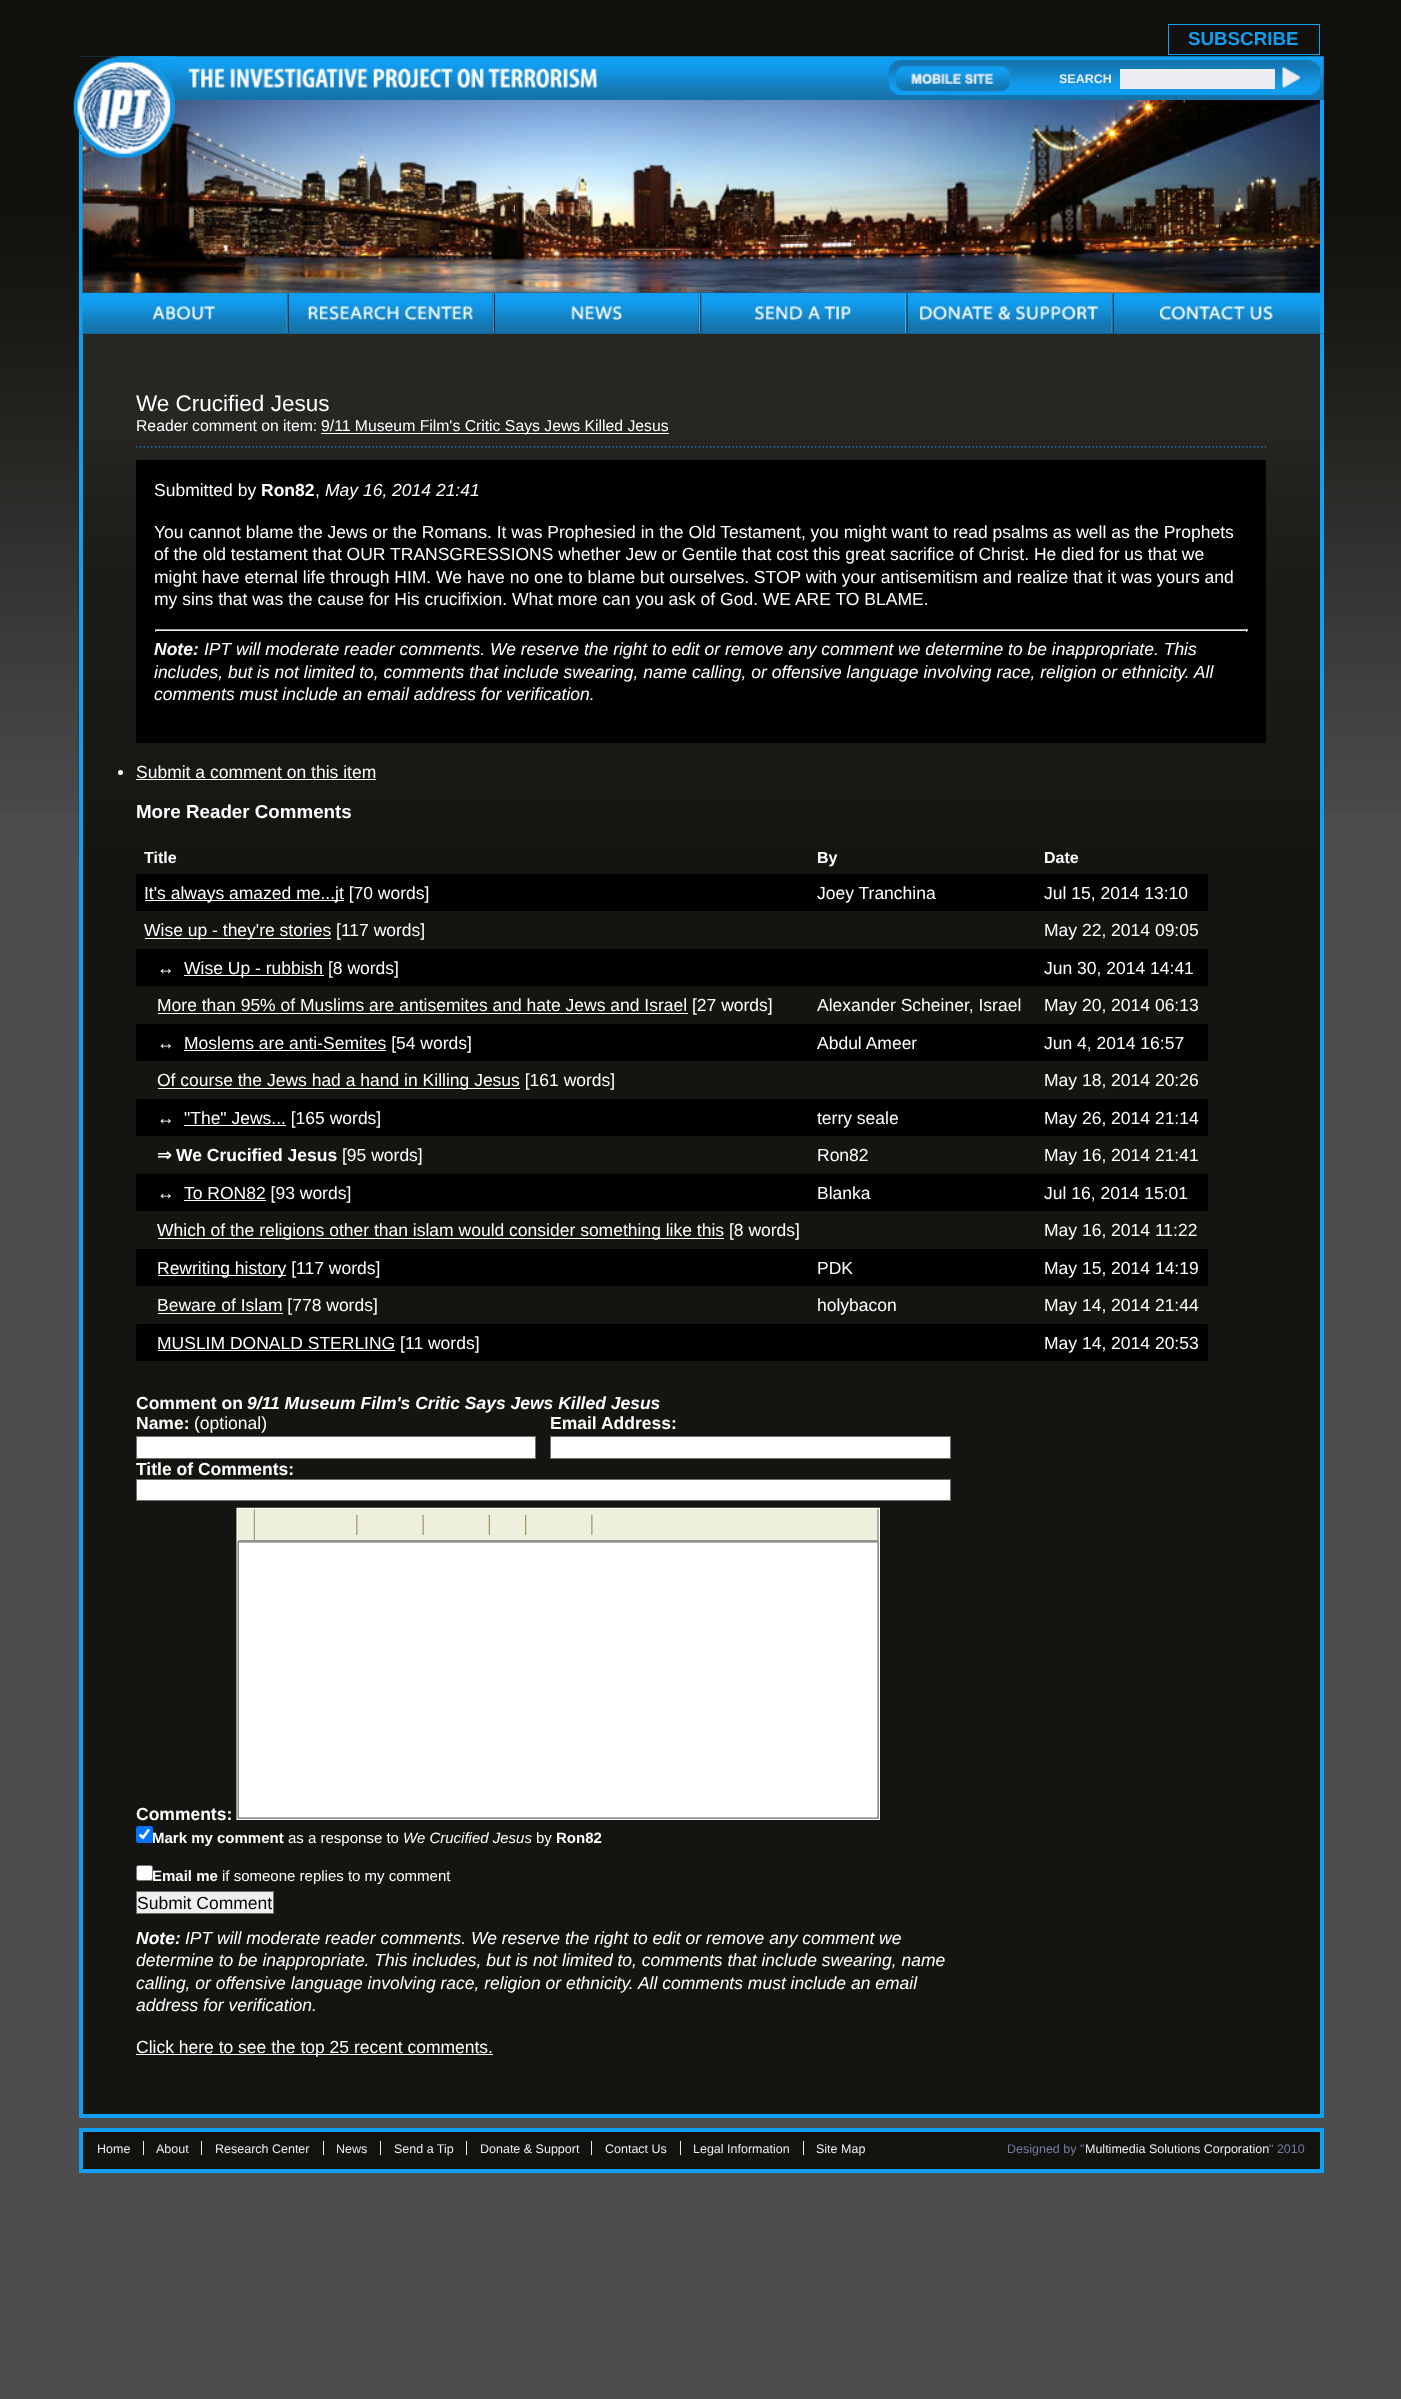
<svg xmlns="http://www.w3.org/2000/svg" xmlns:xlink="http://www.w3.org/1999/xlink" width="1401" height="2399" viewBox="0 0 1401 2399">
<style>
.cls-1{font:bold 18.75px Liberation Sans;fill:#119ff2}
.cls-2{font:bold 12.5px Liberation Sans;fill:#ebecf3}
.cls-3{font:22.5px Liberation Sans;fill:#ffffff}
.cls-4{font:15.75px Liberation Sans;fill:#ffffff}
.cls-5{font:17.5px Liberation Sans;fill:#ffffff}
.cls-6{font:bold 17.5px Liberation Sans;fill:#ffffff}
.cls-7{font:italic 17.5px Liberation Sans;fill:#ffffff}
.cls-8{font:italic bold 17.5px Liberation Sans;fill:#ffffff}
.cls-9{font:bold 18.75px Liberation Sans;fill:#ffffff}
.cls-10{font:bold 16px Liberation Sans;fill:#ffffff}
.cls-11{font:bold 17.5px DejaVu Sans;fill:#ffffff}
.cls-12{font:bold 15px Liberation Sans;fill:#ffffff}
.cls-13{font:15px Liberation Sans;fill:#ffffff}
.cls-14{font:italic 15px Liberation Sans;fill:#ffffff}
.cls-15{font:17.5px Liberation Sans;fill:#000000}
.cls-16{font:12.5px Liberation Sans;fill:#ebecf3}
.cls-17{font:12.5px Liberation Sans;fill:#717ca2}
</style>
<rect width="100%" height="100%" fill="#4d4d4d"/>
<image xlink:href="image0.png" x="0" y="0" width="1401" height="814"/>
<rect fill="none" stroke="#119ff2" x="1168.5" y="24.5" width="151" height="30"/>
<image xlink:href="image1.png" x="78" y="56" width="1246" height="44"/>
<rect fill="#119ff2" x="79" y="131" width="4" height="203"/>
<rect fill="#119ff2" x="1320" y="100" width="4" height="234"/>
<rect fill="#161411" x="83" y="857" width="1237" height="1257"/>
<image xlink:href="image24.png" x="78" y="333" width="1246" height="525"/>
<image xlink:href="image8.png" x="286" y="292" width="3" height="42"/>
<image xlink:href="image9.png" x="82" y="292" width="205" height="42"/>
<image xlink:href="image11.png" x="492" y="292" width="3" height="42"/>
<image xlink:href="image12.png" x="288" y="292" width="205" height="42"/>
<image xlink:href="image14.png" x="698" y="292" width="4" height="42"/>
<image xlink:href="image15.png" x="495" y="292" width="204" height="42"/>
<image xlink:href="image17.png" x="905" y="292" width="3" height="42"/>
<image xlink:href="image18.png" x="701" y="292" width="204" height="42"/>
<image xlink:href="image8.png" x="1111" y="292" width="3" height="42"/>
<image xlink:href="image20.png" x="907" y="292" width="205" height="42"/>
<image xlink:href="image22.png" x="1113" y="292" width="207" height="42"/>
<image xlink:href="image7.png" x="82" y="100" width="1238" height="193"/>
<image xlink:href="image2.png" x="73" y="56" width="102" height="102"/>
<image xlink:href="image3.png" x="188" y="68" width="410" height="20"/>
<image xlink:href="image4.png" x="888" y="60" width="432" height="35"/>
<image xlink:href="image5.png" x="896" y="66" width="114" height="26"/>
<rect fill="#ededf4" x="1120" y="69" width="155" height="20"/>
<image xlink:href="image6.png" x="1282" y="67" width="18" height="21"/>
<image xlink:href="image10.png" x="152" y="306" width="63" height="15"/>
<image xlink:href="image13.png" x="308" y="306" width="165" height="15"/>
<image xlink:href="image16.png" x="571" y="306" width="51" height="15"/>
<image xlink:href="image19.png" x="755" y="306" width="97" height="15"/>
<image xlink:href="image21.png" x="920" y="306" width="179" height="15"/>
<image xlink:href="image23.png" x="1160" y="306" width="113" height="15"/>
<rect fill="#119ff2" x="1320" y="334" width="4" height="1784"/>
<rect fill="#119ff2" x="79" y="2114" width="1245" height="4"/>
<rect fill="#119ff2" x="79" y="334" width="4" height="1784"/>
<image xlink:href="image25.png" x="136" y="446" width="1131" height="2"/>
<rect fill="#ffffff" x="321" y="433" width="348" height="1"/>
<rect fill="#000000" x="136" y="460" width="1130" height="283"/>
<rect fill="#9f9f9f" x="155" y="629" width="1093" height="1"/>
<rect fill="#eeeeee" x="1246" y="629" width="1" height="3"/>
<rect fill="#eeeeee" x="155" y="630" width="1093" height="1"/>
<rect fill="#9f9f9f" x="155" y="629" width="1" height="3"/>
<circle fill="#ffffff" cx="120.5" cy="772.5" r="2.5"/>
<rect fill="#ffffff" x="136" y="779" width="240" height="1"/>
<rect fill="#000000" x="136" y="874" width="1072" height="37"/>
<rect fill="#ffffff" x="145" y="900" width="199" height="1"/>
<rect fill="#ffffff" x="145" y="938" width="186" height="1"/>
<rect fill="#000000" x="136" y="949" width="1072" height="37"/>
<rect fill="#ffffff" x="184" y="975" width="140" height="1"/>
<rect fill="#ffffff" x="158" y="1013" width="530" height="1"/>
<rect fill="#000000" x="136" y="1024" width="1072" height="37"/>
<rect fill="#ffffff" x="184" y="1050" width="202" height="1"/>
<rect fill="#ffffff" x="158" y="1088" width="362" height="1"/>
<rect fill="#000000" x="136" y="1099" width="1072" height="37"/>
<rect fill="#ffffff" x="184" y="1125" width="102" height="1"/>
<rect fill="#000000" x="136" y="1174" width="1072" height="37"/>
<rect fill="#ffffff" x="184" y="1200" width="82" height="1"/>
<rect fill="#ffffff" x="158" y="1238" width="566" height="1"/>
<rect fill="#000000" x="136" y="1249" width="1072" height="37"/>
<rect fill="#ffffff" x="158" y="1275" width="128" height="1"/>
<rect fill="#ffffff" x="158" y="1313" width="125" height="1"/>
<rect fill="#000000" x="136" y="1324" width="1072" height="37"/>
<rect fill="#ffffff" x="158" y="1350" width="237" height="1"/>
<rect fill="#ffffff" stroke="#6f6d6d" x="136.5" y="1436.5" width="399" height="22"/>
<rect fill="#ffffff" stroke="#6f6d6d" x="550.5" y="1436.5" width="400" height="22"/>
<rect fill="#ffffff" stroke="#6f6d6d" x="136.5" y="1479.5" width="814" height="21"/>
<image xlink:href="image26.png" x="236" y="1507" width="644" height="313"/>
<rect fill="#0075ff" x="136" y="1826" width="17" height="17" rx="2.5"/>
<path fill="none" stroke="#ffffff" stroke-width="2.6" d="M139.5 1834.5L143 1837.5L149 1829.5"/>
<rect fill="#ffffff" stroke="#767676" x="136.5" y="1865.5" width="16" height="15" rx="2"/>
<rect fill="#efefef" stroke="#6f6d6d" x="136.5" y="1891.5" width="137" height="22"/>
<rect fill="#ffffff" x="136" y="2054" width="357" height="1"/>
<rect fill="#14120f" stroke="#119ff2" stroke-width="4" x="81" y="2130" width="1241" height="41"/>
<rect fill="#ebecf3" x="143" y="2141" width="1" height="14"/>
<rect fill="#ebecf3" x="201" y="2141" width="1" height="14"/>
<rect fill="#ebecf3" x="323" y="2141" width="1" height="14"/>
<rect fill="#ebecf3" x="380" y="2141" width="1" height="14"/>
<rect fill="#ebecf3" x="466" y="2141" width="1" height="14"/>
<rect fill="#ebecf3" x="591" y="2141" width="1" height="14"/>
<rect fill="#ebecf3" x="680" y="2141" width="1" height="14"/>
<rect fill="#ebecf3" x="803" y="2141" width="1" height="14"/>
<text class="cls-1" x="1188" y="45">SUBSCRIBE</text>
<text class="cls-2" x="1059" y="83">SEARCH</text>
<text class="cls-3" x="136" y="411">We Crucified Jesus</text>
<text class="cls-4" x="136" y="431">Reader comment on item:</text>
<text class="cls-4" x="321" y="431">9/11 Museum Film's Critic Says Jews Killed Jesus</text>
<text class="cls-5" x="154" y="496">Submitted by</text>
<text class="cls-6" x="261" y="496">Ron82</text>
<text class="cls-5" x="315" y="496">,</text>
<text class="cls-7" x="325" y="496">May 16, 2014 21:41</text>
<text class="cls-5"><tspan x="154" y="538">You cannot blame the Jews or the Romans. It was Prophesied in the Old Testament, you might want to read psalms as well as the Prophets</tspan><tspan x="154" y="560">of the old testament that OUR TRANSGRESSIONS whether Jew or Gentile that cost this great sacrifice of Christ. He died for us that we</tspan><tspan x="154" y="583">might have eternal life through HIM. We have no one to blame but ourselves. STOP with your antisemitism and realize that it was yours and</tspan><tspan x="154" y="605">my sins that was the cause for His crucifixion. What more can you ask of God. WE ARE TO BLAME.</tspan></text>
<text class="cls-8" x="154" y="655">Note:</text>
<text class="cls-7" x="204" y="655">IPT will moderate reader comments. We reserve the right to edit or remove any comment we determine to be inappropriate. This</text>
<text class="cls-7"><tspan x="154" y="678">includes, but is not limited to, comments that include swearing, name calling, or offensive language involving race, religion or ethnicity. All</tspan><tspan x="154" y="700">comments must include an email address for verification.</tspan></text>
<text class="cls-5" x="136" y="778">Submit a comment on this item</text>
<text class="cls-9" x="136" y="818">More Reader Comments</text>
<text class="cls-10" x="144" y="863">Title</text>
<text class="cls-10" x="817" y="863">By</text>
<text class="cls-10" x="1044" y="863">Date</text>
<text class="cls-5" x="144" y="899">It's always amazed me...jt [70 words]</text>
<text class="cls-5" x="817" y="899">Joey Tranchina</text>
<text class="cls-5" x="1044" y="899">Jul 15, 2014 13:10</text>
<text class="cls-5" x="144" y="936">Wise up - they're stories [117 words]</text>
<text class="cls-5" x="1044" y="936">May 22, 2014 09:05</text>
<text class="cls-6" x="157" y="974">↔</text>
<text class="cls-5" x="184" y="974">Wise Up - rubbish [8 words]</text>
<text class="cls-5" x="1044" y="974">Jun 30, 2014 14:41</text>
<text class="cls-5" x="157" y="1011">More than 95% of Muslims are antisemites and hate Jews and Israel [27 words]</text>
<text class="cls-5" x="817" y="1011">Alexander Scheiner, Israel</text>
<text class="cls-5" x="1044" y="1011">May 20, 2014 06:13</text>
<text class="cls-6" x="157" y="1049">↔</text>
<text class="cls-5" x="184" y="1049">Moslems are anti-Semites [54 words]</text>
<text class="cls-5" x="817" y="1049">Abdul Ameer</text>
<text class="cls-5" x="1044" y="1049">Jun 4, 2014 16:57</text>
<text class="cls-5" x="157" y="1086">Of course the Jews had a hand in Killing Jesus [161 words]</text>
<text class="cls-5" x="1044" y="1086">May 18, 2014 20:26</text>
<text class="cls-6" x="157" y="1124">↔</text>
<text class="cls-5" x="184" y="1124">"The" Jews... [165 words]</text>
<text class="cls-5" x="817" y="1124">terry seale</text>
<text class="cls-5" x="1044" y="1124">May 26, 2014 21:14</text>
<text class="cls-11" x="157" y="1161">⇒</text>
<text class="cls-6" x="176" y="1161">We Crucified Jesus</text>
<text class="cls-5" x="342" y="1161">[95 words]</text>
<text class="cls-5" x="817" y="1161">Ron82</text>
<text class="cls-5" x="1044" y="1161">May 16, 2014 21:41</text>
<text class="cls-6" x="157" y="1199">↔</text>
<text class="cls-5" x="184" y="1199">To RON82 [93 words]</text>
<text class="cls-5" x="817" y="1199">Blanka</text>
<text class="cls-5" x="1044" y="1199">Jul 16, 2014 15:01</text>
<text class="cls-5" x="157" y="1236">Which of the religions other than islam would consider something like this [8 words]</text>
<text class="cls-5" x="1044" y="1236">May 16, 2014 11:22</text>
<text class="cls-5" x="157" y="1274">Rewriting history [117 words]</text>
<text class="cls-5" x="817" y="1274">PDK</text>
<text class="cls-5" x="1044" y="1274">May 15, 2014 14:19</text>
<text class="cls-5" x="157" y="1311">Beware of Islam [778 words]</text>
<text class="cls-5" x="817" y="1311">holybacon</text>
<text class="cls-5" x="1044" y="1311">May 14, 2014 21:44</text>
<text class="cls-5" x="157" y="1349">MUSLIM DONALD STERLING [11 words]</text>
<text class="cls-5" x="1044" y="1349">May 14, 2014 20:53</text>
<text class="cls-6" x="136" y="1409">Comment on</text>
<text class="cls-8" x="247" y="1409">9/11 Museum Film's Critic Says Jews Killed Jesus</text>
<text class="cls-6" x="136" y="1429">Name:</text>
<text class="cls-5" x="194" y="1429">(optional)</text>
<text class="cls-6" x="550" y="1429">Email Address:</text>
<text class="cls-6" x="136" y="1475">Title of Comments:</text>
<text class="cls-6" x="136" y="1820">Comments:</text>
<text class="cls-12" x="152" y="1843">Mark my comment</text>
<text class="cls-13" x="288" y="1843">as a response to</text>
<text class="cls-14" x="403" y="1843">We Crucified Jesus</text>
<text class="cls-13" x="536" y="1843">by</text>
<text class="cls-12" x="556" y="1843">Ron82</text>
<text class="cls-12" x="152" y="1881">Email me</text>
<text class="cls-13" x="222" y="1881">if someone replies to my comment</text>
<text class="cls-15" x="137" y="1909">Submit Comment</text>
<text class="cls-8" x="136" y="1944">Note:</text>
<text class="cls-7" x="185" y="1944">IPT will moderate reader comments. We reserve the right to edit or remove any comment we</text>
<text class="cls-7"><tspan x="136" y="1966">determine to be inappropriate. This includes, but is not limited to, comments that include swearing, name</tspan><tspan x="136" y="1989">calling, or offensive language involving race, religion or ethnicity. All comments must include an email</tspan><tspan x="136" y="2011">address for verification.</tspan></text>
<text class="cls-5" x="136" y="2053">Click here to see the top 25 recent comments.</text>
<text class="cls-16" x="97" y="2153">Home</text>
<text class="cls-16" x="156" y="2153">About</text>
<text class="cls-16" x="215" y="2153">Research Center</text>
<text class="cls-16" x="336" y="2153">News</text>
<text class="cls-16" x="394" y="2153">Send a Tip</text>
<text class="cls-16" x="480" y="2153">Donate &amp; Support</text>
<text class="cls-16" x="605" y="2153">Contact Us</text>
<text class="cls-16" x="693" y="2153">Legal Information</text>
<text class="cls-16" x="816" y="2153">Site Map</text>
<text class="cls-17" x="1007" y="2153">Designed by "</text>
<text class="cls-16" x="1085" y="2153">Multimedia Solutions Corporation</text>
<text class="cls-17" x="1269" y="2153">" 2010</text>
</svg>
